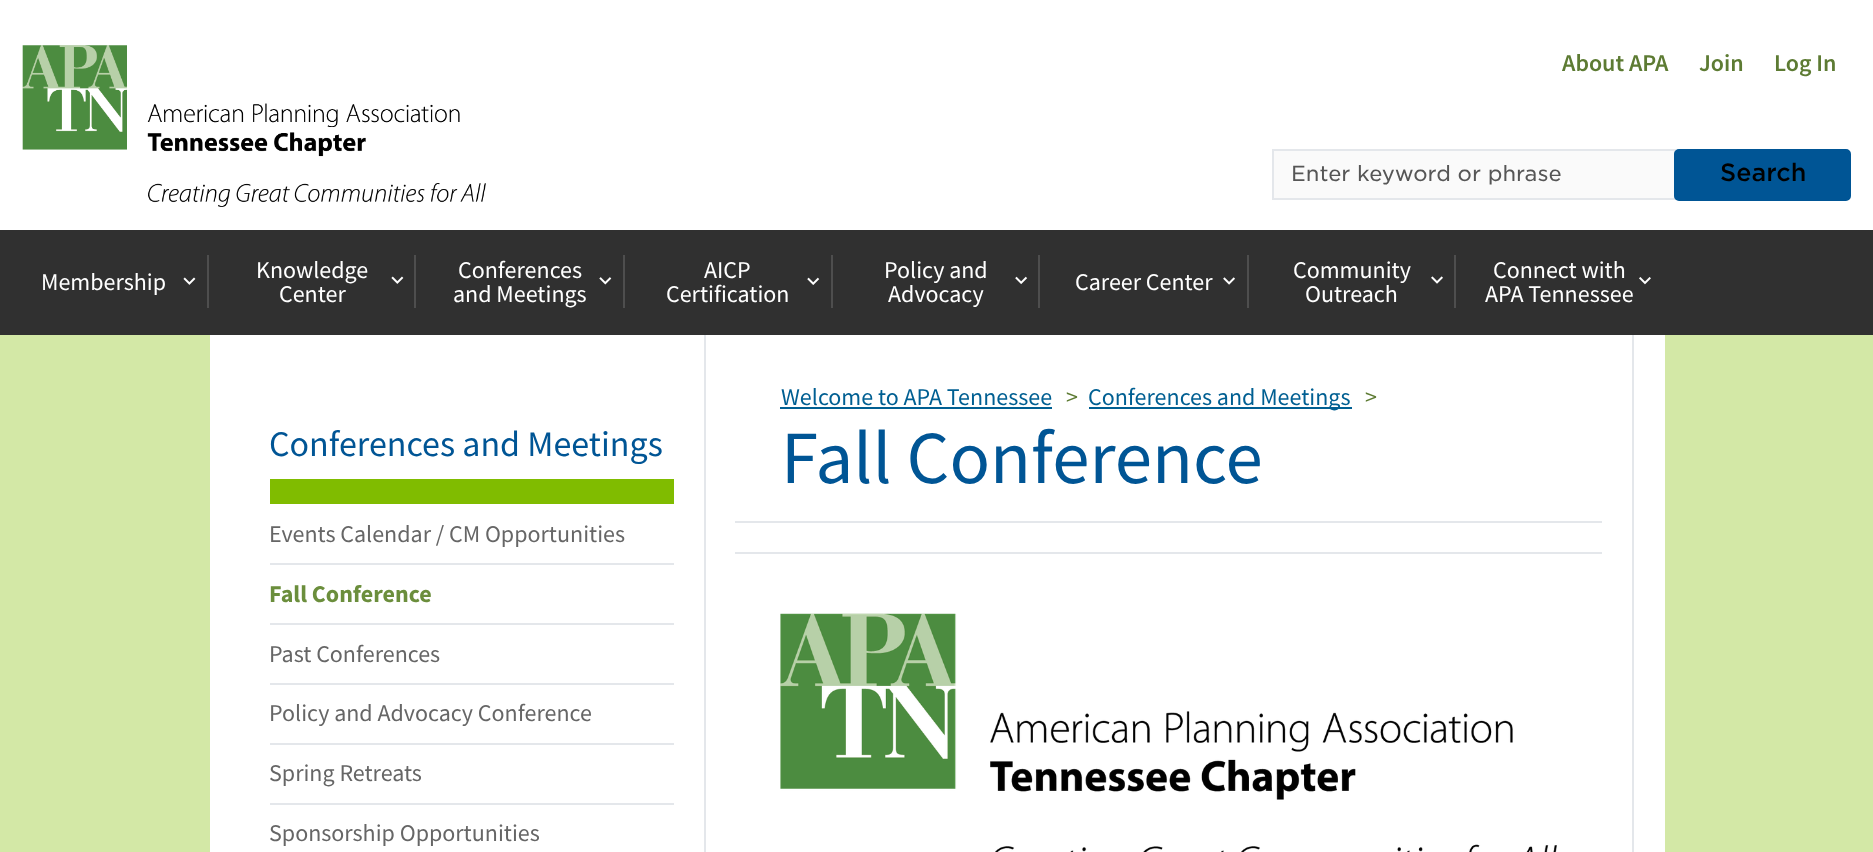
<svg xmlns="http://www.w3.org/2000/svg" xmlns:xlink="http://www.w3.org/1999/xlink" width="1873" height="852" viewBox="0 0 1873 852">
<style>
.cls-1{font:600 24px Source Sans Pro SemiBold;fill:#5d7b33}
.cls-2{font:300 21px 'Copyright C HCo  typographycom';fill:#565656}
.cls-3{font:300 24px 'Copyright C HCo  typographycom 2';fill:#000000}
.cls-4{font:24px Source Sans Pro;fill:#ffffff}
.cls-5{font:36px Source Sans Pro;fill:#005595}
.cls-6{font:24px Source Sans Pro;fill:#666666}
.cls-7{font:bold 24px Source Sans Pro;fill:#6b8e3c}
.cls-8{font:24px Source Sans Pro;fill:#005f92}
.cls-9{font:24px Source Sans Pro;fill:#5d7b33}
.cls-10{font:75px Source Sans Pro;fill:#005595}
</style>
<rect width="100%" height="100%" fill="#ffffff"/>
<image xlink:href="image0.png" x="22" y="45" width="464" height="162"/>
<rect fill="#fafafa" stroke="#e4e7eb" stroke-width="2" x="1273" y="150" width="402" height="49"/>
<rect fill="#005595" stroke="#005595" stroke-width="2" x="1675" y="150" width="175" height="50" rx="4"/>
<rect fill="#303030" x="0" y="230" width="1873" height="105"/>
<image xlink:href="image1.png" x="183" y="277" width="13" height="8"/>
<rect fill="#4e4e4e" x="207" y="255" width="2" height="53"/>
<image xlink:href="image2.png" x="391" y="276" width="13" height="8"/>
<rect fill="#4e4e4e" x="414" y="255" width="2" height="53"/>
<image xlink:href="image3.png" x="599" y="277" width="13" height="8"/>
<rect fill="#4e4e4e" x="623" y="255" width="2" height="53"/>
<image xlink:href="image4.png" x="807" y="277" width="13" height="8"/>
<rect fill="#4e4e4e" x="831" y="255" width="2" height="53"/>
<image xlink:href="image5.png" x="1015" y="276" width="13" height="9"/>
<rect fill="#4e4e4e" x="1038" y="255" width="2" height="53"/>
<image xlink:href="image6.png" x="1223" y="277" width="12" height="8"/>
<rect fill="#4e4e4e" x="1247" y="255" width="2" height="53"/>
<image xlink:href="image7.png" x="1431" y="276" width="12" height="8"/>
<rect fill="#4e4e4e" x="1454" y="255" width="2" height="53"/>
<image xlink:href="image8.png" x="1639" y="277" width="12" height="8"/>
<rect fill="#d3e8a6" x="0" y="335" width="1873" height="517"/>
<rect fill="#ffffff" x="210" y="335" width="1455" height="517"/>
<rect fill="#80bc00" x="270" y="479" width="404" height="25"/>
<rect fill="#e4e7eb" x="270" y="563" width="404" height="2"/>
<rect fill="#e4e7eb" x="270" y="623" width="404" height="2"/>
<rect fill="#e4e7eb" x="270" y="683" width="404" height="2"/>
<rect fill="#e4e7eb" x="270" y="743" width="404" height="2"/>
<rect fill="#e4e7eb" x="270" y="803" width="404" height="2"/>
<rect fill="#e4e7eb" x="1632" y="335" width="2" height="517"/>
<rect fill="#e4e7eb" x="704" y="335" width="2" height="517"/>
<rect fill="#e4e7eb" x="735" y="521" width="867" height="2"/>
<rect fill="#005f92" x="780" y="407" width="272" height="2"/>
<rect fill="#005f92" x="1089" y="407" width="263" height="2"/>
<rect fill="#e4e7eb" x="735" y="552" width="867" height="2"/>
<image xlink:href="image9.png" x="780" y="613" width="777" height="239"/>
<text class="cls-1" x="1562" y="71">About APA</text>
<text class="cls-1" x="1699" y="71">Join</text>
<text class="cls-1" x="1774" y="71">Log In</text>
<text class="cls-2" x="1291" y="181">Enter keyword or phrase</text>
<text class="cls-3" x="1720" y="181">Search</text>
<text class="cls-4" x="41" y="290">Membership</text>
<text class="cls-4" x="256" y="278">Knowledge</text>
<text class="cls-4" x="279" y="302">Center</text>
<text class="cls-4" x="458" y="278">Conferences</text>
<text class="cls-4" x="453" y="302">and Meetings</text>
<text class="cls-4" x="704" y="278">AICP</text>
<text class="cls-4" x="666" y="302">Certification</text>
<text class="cls-4" x="884" y="278">Policy and</text>
<text class="cls-4" x="888" y="302">Advocacy</text>
<text class="cls-4" x="1075" y="290">Career Center</text>
<text class="cls-4" x="1293" y="278">Community</text>
<text class="cls-4" x="1305" y="302">Outreach</text>
<text class="cls-4" x="1493" y="278">Connect with</text>
<text class="cls-4" x="1485" y="302">APA Tennessee</text>
<text class="cls-5" x="269" y="456">Conferences and Meetings</text>
<text class="cls-6" x="269" y="542">Events Calendar / CM Opportunities</text>
<text class="cls-7" x="269" y="602">Fall Conference</text>
<text class="cls-6" x="269" y="662">Past Conferences</text>
<text class="cls-6" x="269" y="721">Policy and Advocacy Conference</text>
<text class="cls-6" x="269" y="781">Spring Retreats</text>
<text class="cls-6" x="269" y="841">Sponsorship Opportunities</text>
<text class="cls-8" x="781" y="405">Welcome to APA Tennessee</text>
<text class="cls-9" x="1066" y="405">&gt;</text>
<text class="cls-8" x="1088" y="405">Conferences and Meetings</text>
<text class="cls-9" x="1365" y="405">&gt;</text>
<text class="cls-10" x="781" y="483">Fall Conference</text>
</svg>
